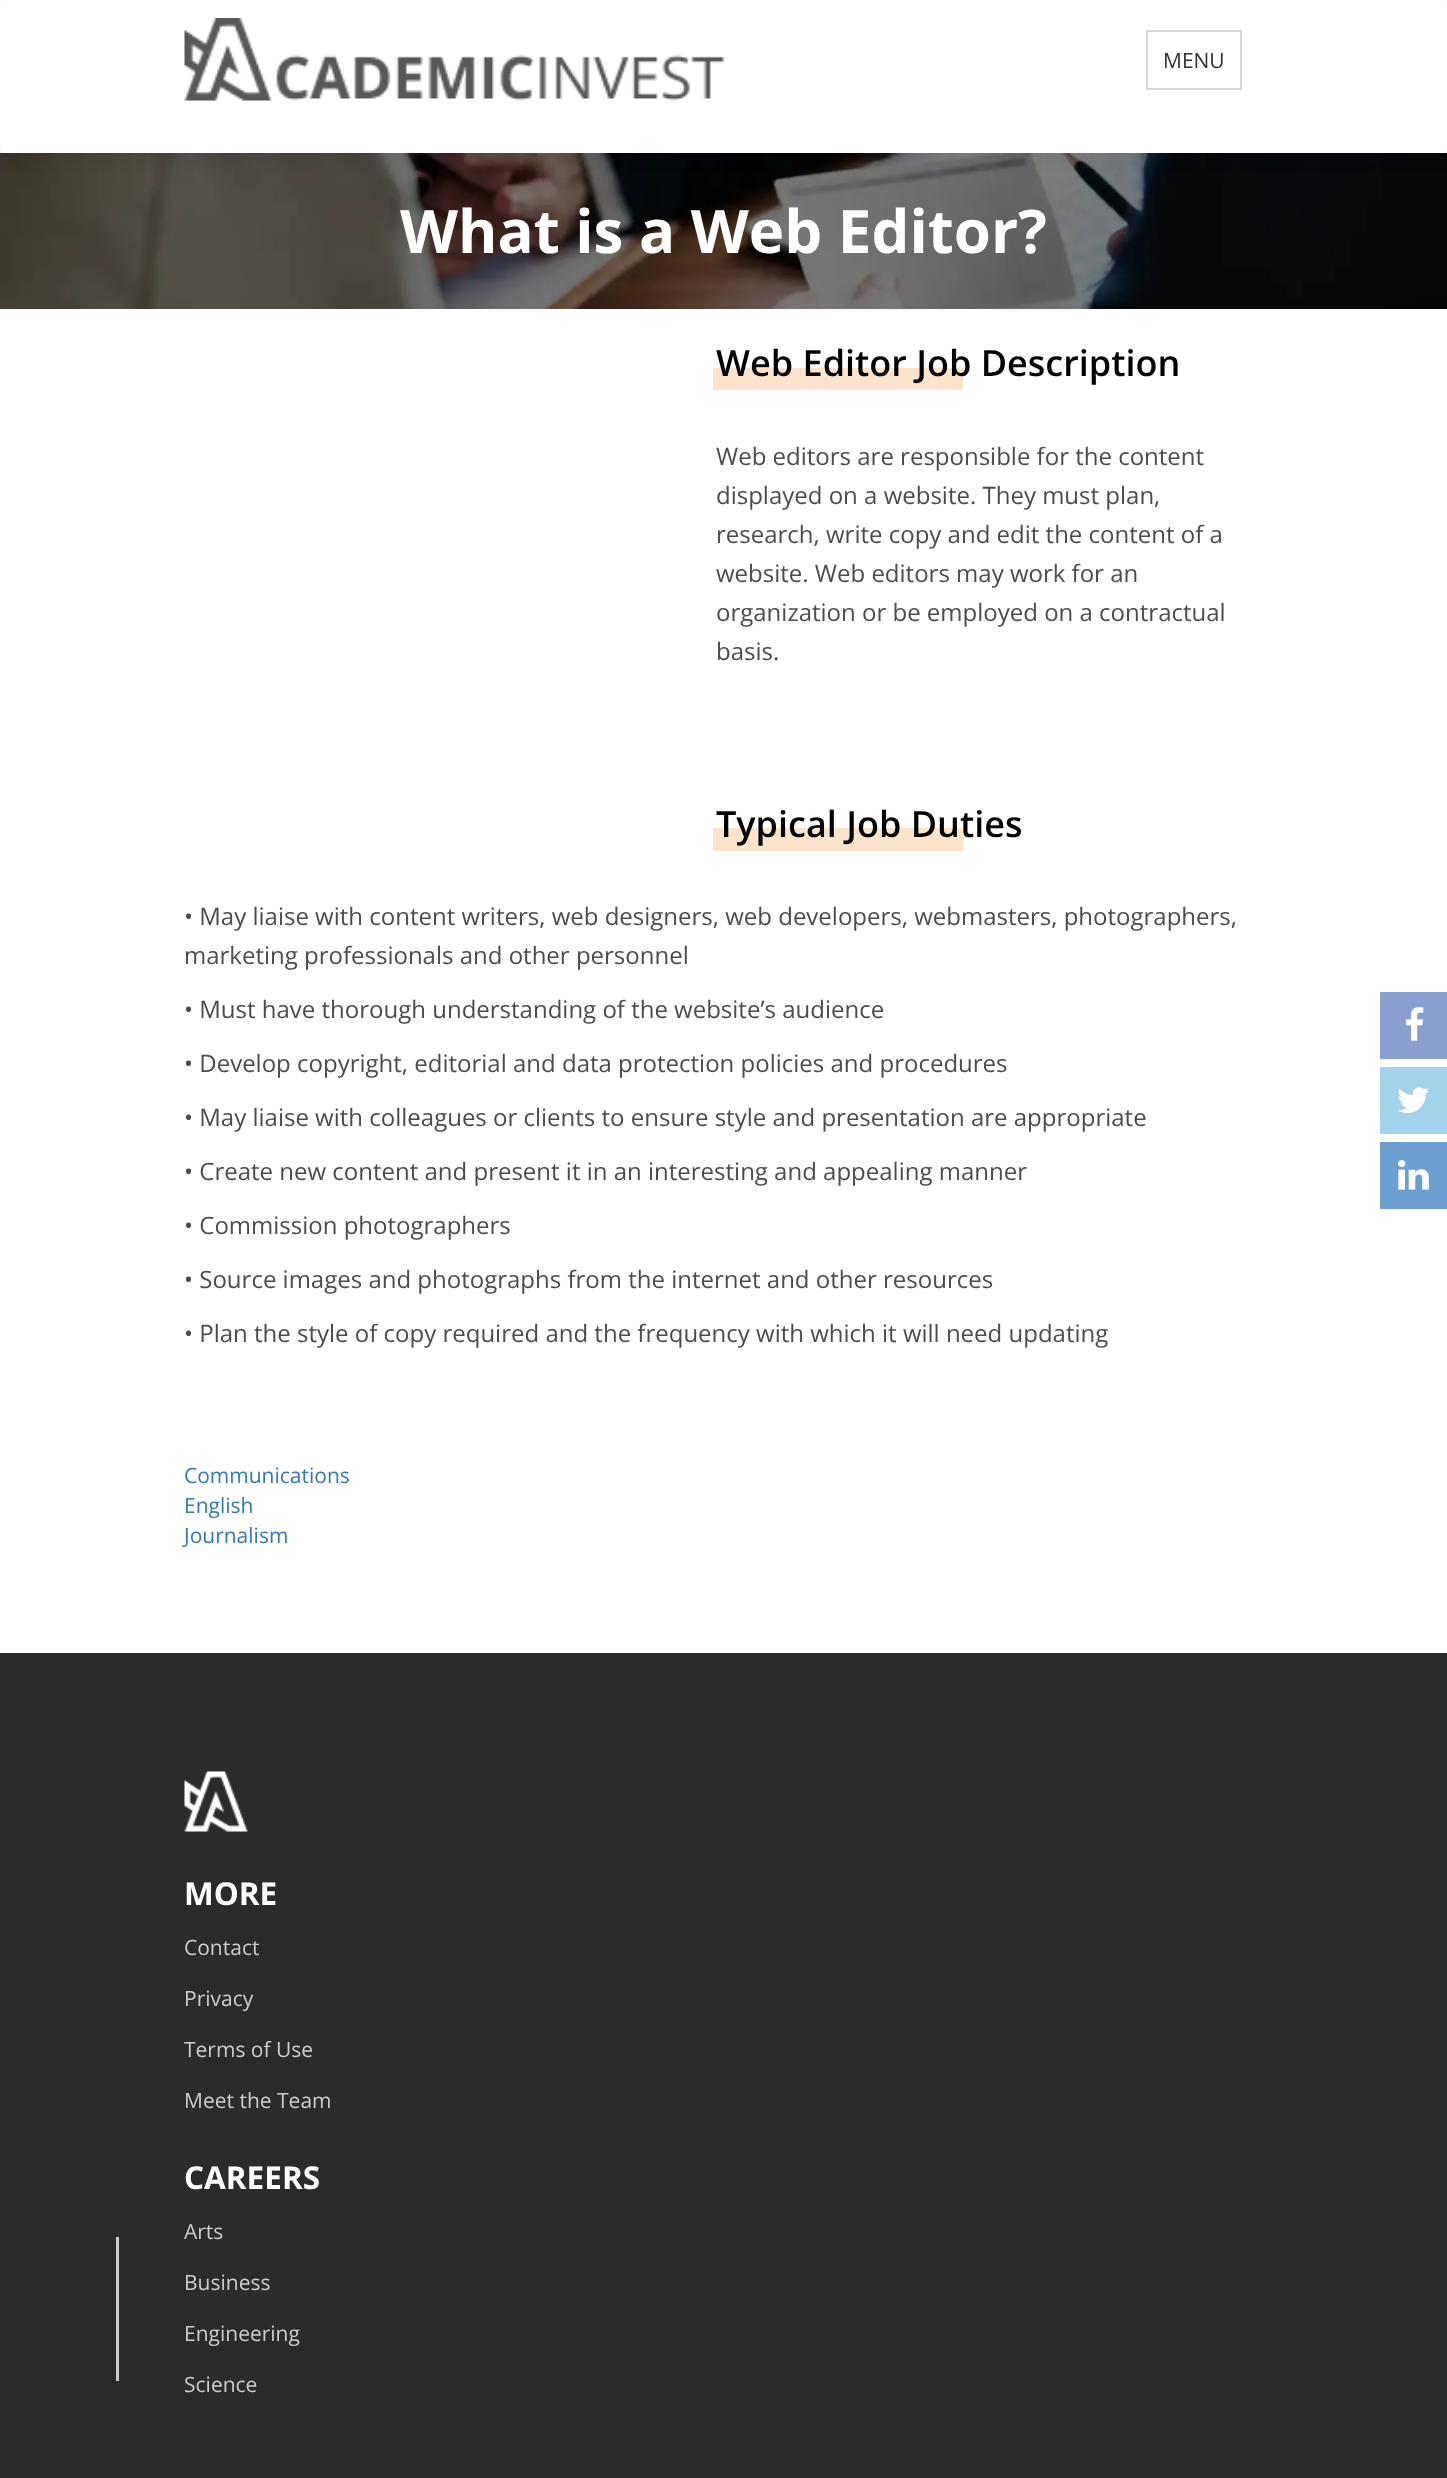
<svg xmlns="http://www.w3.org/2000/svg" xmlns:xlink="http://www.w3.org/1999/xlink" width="1447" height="2478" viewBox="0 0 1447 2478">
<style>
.cls-1{font:21px Open Sans;fill:#333333}
.cls-2{font:bold 60px Open Sans;fill:#ffffff}
.cls-3{font:600 36px Open Sans;fill:#000000}
.cls-4{font:24px Open Sans;fill:#4c4c4c}
.cls-5{font:21px Open Sans;fill:#337ab7}
.cls-6{font:bold 31.5px Open Sans;fill:#ffffff}
.cls-7{font:21px Open Sans;fill:#cccccc}
</style>
<rect width="100%" height="100%" fill="#ffffff"/>
<image xlink:href="image1.png" x="0" y="153" width="1447" height="156"/>
<rect fill="#000000" fill-opacity="0.1" filter="blur(9px)" x="0" y="2" width="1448" height="153" rx="6"/>
<rect fill="#ffffff" x="0" y="0" width="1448" height="153" rx="6"/>
<image xlink:href="image0.png" x="184" y="18" width="541" height="83"/>
<rect fill="none" stroke="#d8d8d8" stroke-width="2" x="1147" y="31" width="94" height="58"/>
<rect fill="#899fcf" x="1380" y="992" width="67" height="67"/>
<image xlink:href="image2.png" x="1405" y="1007" width="19" height="34"/>
<rect fill="#a3d3ea" x="1380" y="1067" width="67" height="67"/>
<image xlink:href="image3.png" x="1397" y="1087" width="32" height="26"/>
<rect fill="#6b9fd1" x="1380" y="1142" width="67" height="67"/>
<image xlink:href="image4.png" x="1398" y="1160" width="31" height="30"/>
<rect fill="#fce3cc" x="713" y="368" width="250" height="22"/>
<rect fill="#fce3cc" x="713" y="828" width="250" height="23"/>
<rect fill="#2b2b2b" x="0" y="1653" width="1447" height="825"/>
<image xlink:href="image5.png" x="184" y="1771" width="64" height="61"/>
<rect fill="#cccccc" x="116" y="2237" width="3" height="144"/>
<text class="cls-1" x="1163" y="68">MENU</text>
<text class="cls-2" x="400" y="253">What is a Web Editor?</text>
<text class="cls-3" x="716" y="376">Web Editor Job Description</text>
<text class="cls-4"><tspan x="716" y="465">Web editors are responsible for the content</tspan><tspan x="716" y="504">displayed on a website. They must plan,</tspan><tspan x="716" y="543">research, write copy and edit the content of a</tspan><tspan x="716" y="582">website. Web editors may work for an</tspan><tspan x="716" y="621">organization or be employed on a contractual</tspan><tspan x="716" y="660">basis.</tspan></text>
<text class="cls-3" x="716" y="837">Typical Job Duties</text>
<text class="cls-4"><tspan x="184" y="925">• May liaise with content writers, web designers, web developers, webmasters, photographers,</tspan><tspan x="184" y="964">marketing professionals and other personnel</tspan></text>
<text class="cls-4" x="184" y="1018">• Must have thorough understanding of the website’s audience</text>
<text class="cls-4" x="184" y="1072">• Develop copyright, editorial and data protection policies and procedures</text>
<text class="cls-4" x="184" y="1126">• May liaise with colleagues or clients to ensure style and presentation are appropriate</text>
<text class="cls-4" x="184" y="1180">• Create new content and present it in an interesting and appealing manner</text>
<text class="cls-4" x="184" y="1234">• Commission photographers</text>
<text class="cls-4" x="184" y="1288">• Source images and photographs from the internet and other resources</text>
<text class="cls-4" x="184" y="1342">• Plan the style of copy required and the frequency with which it will need updating</text>
<text class="cls-5"><tspan x="184" y="1483">Communications</tspan><tspan x="184" y="1513">English</tspan><tspan x="184" y="1543">Journalism</tspan></text>
<text class="cls-6" x="184" y="1905">MORE</text>
<text class="cls-7" x="184" y="1955">Contact</text>
<text class="cls-7" x="184" y="2006">Privacy</text>
<text class="cls-7" x="184" y="2057">Terms of Use</text>
<text class="cls-7" x="184" y="2108">Meet the Team</text>
<text class="cls-6" x="184" y="2189">CAREERS</text>
<text class="cls-7" x="184" y="2239">Arts</text>
<text class="cls-7" x="184" y="2290">Business</text>
<text class="cls-7" x="184" y="2341">Engineering</text>
<text class="cls-7" x="184" y="2392">Science</text>
</svg>
